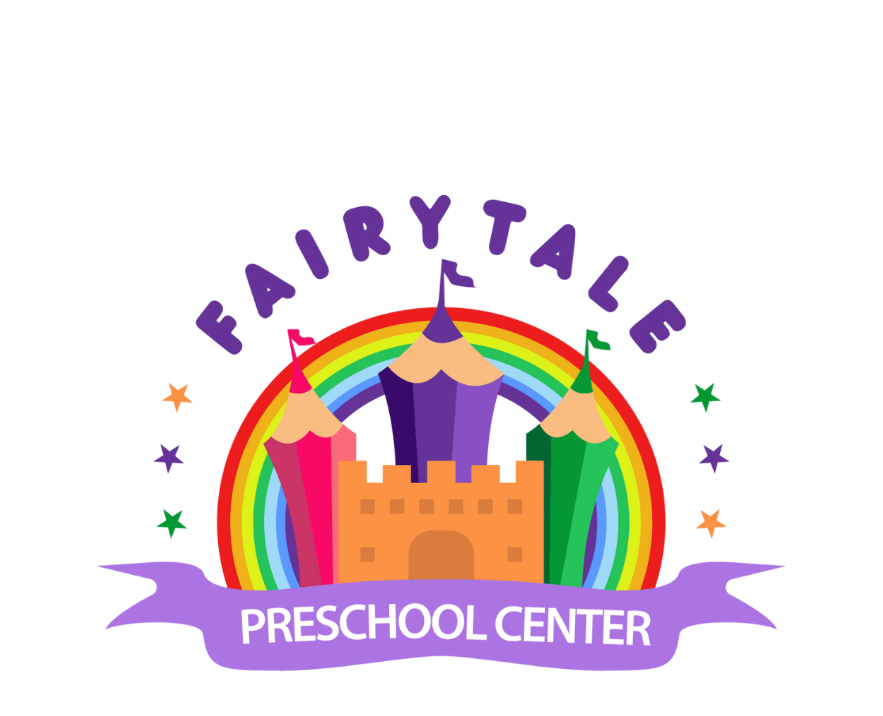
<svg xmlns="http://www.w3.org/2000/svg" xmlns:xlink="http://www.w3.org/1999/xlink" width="883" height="716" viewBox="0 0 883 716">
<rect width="100%" height="100%" fill="#ffffff"/>
<image xlink:href="image0.png" x="96" y="194" width="690" height="478"/>
</svg>
